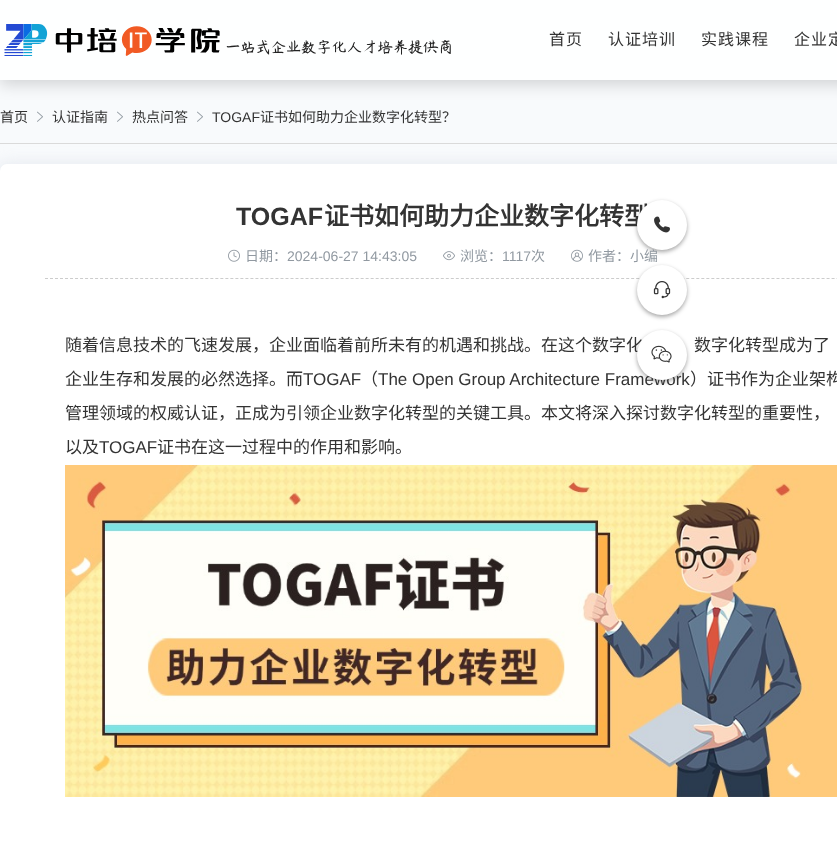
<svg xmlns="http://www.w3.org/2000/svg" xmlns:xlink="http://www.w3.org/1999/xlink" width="837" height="854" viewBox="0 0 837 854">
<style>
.cls-1{font:16px Noto Sans CJK SC;letter-spacing:1px;fill:#333333}
.cls-2{font:14px Noto Sans CJK SC;fill:#333333}
.cls-3{font:14px Liberation Sans;fill:#333333}
.cls-4{font:bold 25px Liberation Sans;fill:#333333}
.cls-5{font:bold 25px Noto Sans CJK SC;fill:#333333}
.cls-6{font:14px Noto Sans CJK SC;fill:#9199a1}
.cls-7{font:14px Liberation Sans;fill:#9199a1}
.cls-8{font:17px Noto Sans CJK SC;fill:#333333}
.cls-9{font:17px Liberation Sans;fill:#333333}
</style>
<rect width="100%" height="100%" fill="#f8fafc"/>
<rect fill="#000000" fill-opacity="0.15" filter="blur(7.5px)" x="0" y="5" width="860" height="80"/>
<rect fill="#feffff" x="0" y="0" width="837" height="80"/>
<image xlink:href="image0.png" x="4" y="24" width="447" height="32"/>
<rect fill="#dadada" x="0" y="143" width="837" height="1"/>
<image xlink:href="image1.png" x="37" y="111" width="6" height="11"/>
<image xlink:href="image1.png" x="117" y="111" width="6" height="11"/>
<image xlink:href="image1.png" x="197" y="111" width="6" height="11"/>
<rect fill="#d7dce6" fill-opacity="0.6" filter="blur(7.5px)" x="-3" y="164" width="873" height="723" rx="10"/>
<rect fill="#ffffff" x="0" y="164" width="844" height="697" rx="7"/>
<path fill="none" stroke="#cccccc" stroke-dasharray="3 2.01" d="M45 278.5H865"/>
<image xlink:href="image2.png" x="228" y="249" width="12" height="13"/>
<image xlink:href="image3.png" x="443" y="251" width="12" height="10"/>
<image xlink:href="image4.png" x="571" y="249" width="12" height="13"/>
<image xlink:href="image5.png" x="65" y="465" width="772" height="332"/>
<rect fill="#000000" fill-opacity="0.35" filter="blur(2px)" x="637" y="202" width="50" height="50" rx="25"/>
<rect fill="#000000" fill-opacity="0.35" filter="blur(2px)" x="637" y="267" width="50" height="50" rx="25"/>
<circle fill="#ffffff" cx="662" cy="290" r="25"/>
<image xlink:href="image7.png" x="653" y="281" width="18" height="18"/>
<rect fill="#000000" fill-opacity="0.35" filter="blur(2px)" x="637" y="332" width="50" height="50" rx="25"/>
<text class="cls-1" x="549" y="45">首页</text>
<text class="cls-1" x="608" y="45">认证培训</text>
<text class="cls-1" x="701" y="45">实践课程</text>
<text class="cls-1" x="794" y="45">企业定</text>
<text class="cls-2" x="0" y="122">首页</text>
<text class="cls-2" x="52" y="122">认证指南</text>
<text class="cls-2" x="132" y="122">热点问答</text>
<text class="cls-3" x="212" y="122">TOGAF</text>
<text class="cls-2" x="260" y="122">证书如何助力企业数字化转型？</text>
<text class="cls-4" x="236" y="225">TOGAF</text>
<text class="cls-5" x="324" y="225">证书如何助力企业数字化转型</text>
<text class="cls-6" x="245" y="261">日期：</text>
<text class="cls-7" x="287" y="261">2024-06-27 14:43:05</text>
<text class="cls-6" x="460" y="261">浏览：</text>
<text class="cls-7" x="502" y="261">1117</text>
<text class="cls-6" x="531" y="261">次</text>
<text class="cls-6" x="588" y="261">作者：小编</text>
<text class="cls-8" x="65" y="351">随着信息技术的飞速发展，企业面临着前所未有的机遇和挑战。在这个数字化</text>
<text class="cls-8" x="694" y="351">数字化转型成为了</text>
<text class="cls-8" x="65" y="385">企业生存和发展的必然选择。而</text>
<text class="cls-9" x="303" y="385">TOGAF</text>
<text class="cls-8" x="361" y="385">（</text>
<text class="cls-9" x="378" y="385">The Open Group Architecture Framework</text>
<text class="cls-8" x="690" y="385">）证书作为企业架构</text>
<text class="cls-8" x="65" y="419">管理领域的权威认证，正成为引领企业数字化转型的关键工具。本文将深入探讨数字化转型的重要性，</text>
<text class="cls-8" x="65" y="453">以及</text>
<text class="cls-9" x="99" y="453">TOGAF</text>
<text class="cls-8" x="157" y="453">证书在这一过程中的作用和影响。</text>
<circle fill="#ffffff" cx="662" cy="225" r="25"/>
<image xlink:href="image6.png" x="654" y="216" width="16" height="17"/>
<circle fill="#ffffff" cx="662" cy="355" r="25"/>
<image xlink:href="image8.png" x="651" y="345" width="21" height="18"/>
</svg>
